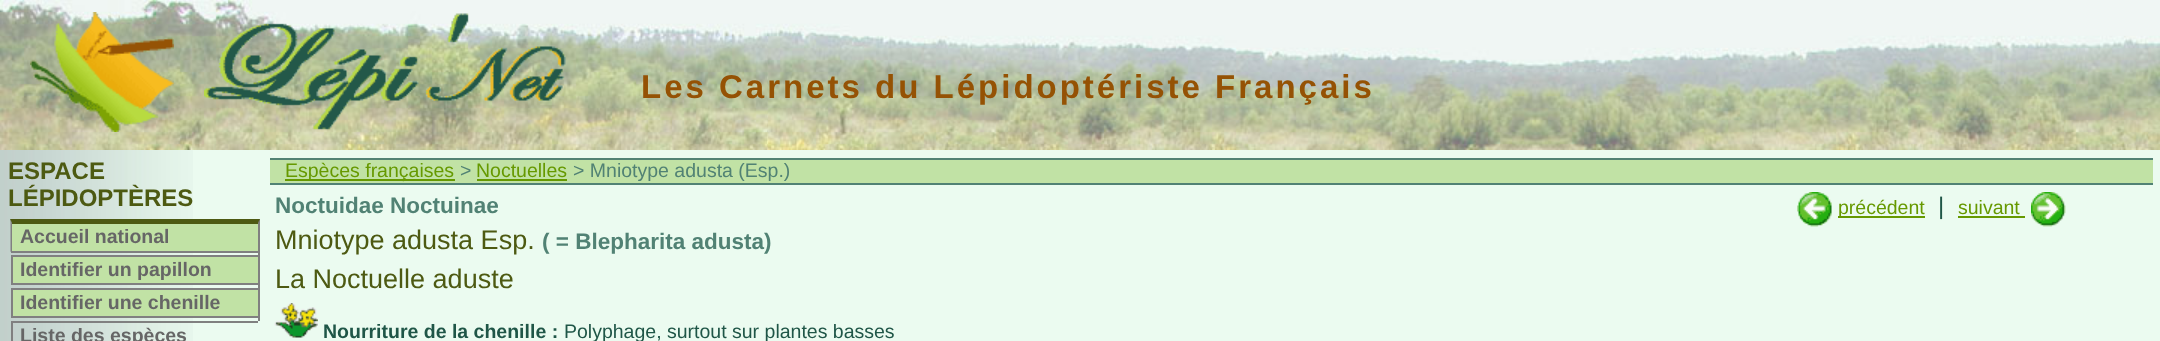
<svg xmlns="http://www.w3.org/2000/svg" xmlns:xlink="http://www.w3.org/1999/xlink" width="2160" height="341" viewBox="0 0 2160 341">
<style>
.cls-1{font:bold 33px Liberation Sans;letter-spacing:3px;fill:#955204}
.cls-2{font:bold 24px Liberation Sans;fill:#4d5a12}
.cls-3{font:bold 19.5px Liberation Sans;fill:#666666}
.cls-4{font:19.5px Liberation Sans;fill:#669900}
.cls-5{font:19.5px Liberation Sans;fill:#518274}
.cls-6{font:bold 22.5px Liberation Sans;fill:#518274}
.cls-7{font:27px Liberation Sans;fill:#4d5a12}
.cls-8{font:bold 19.5px Liberation Sans;fill:#1f5647}
.cls-9{font:19.5px Liberation Sans;fill:#1f5647}
.cls-10{font:24px Liberation Sans;fill:#1f5647}
</style>
<rect width="100%" height="100%" fill="#ebfbf0"/>
<image xlink:href="image0.png" x="0" y="0" width="2160" height="150"/>
<image xlink:href="image1.png" x="30" y="12" width="144" height="120"/>
<image xlink:href="image2.png" x="204" y="13" width="362" height="117"/>
<image xlink:href="image3.png" x="0" y="150" width="193" height="191"/>
<rect fill="#808080" x="258" y="219" width="2" height="102"/>
<rect fill="#c1e2a5" x="12" y="224" width="246" height="27"/>
<path fill="#4d5a12" d="M10 219H260L258 224H12Z"/>
<path fill="#808080" d="M259.5 219V252L258 250.5V223.5Z"/>
<rect fill="#808080" x="11" y="251" width="249" height="2"/>
<path fill="#808080" d="M10.5 252V219L12 223.5V250.5Z"/>
<rect fill="#c1e2a5" stroke="#808080" stroke-width="2" x="12" y="256" width="247" height="28"/>
<rect fill="#c1e2a5" stroke="#808080" stroke-width="2" x="12" y="289" width="247" height="28"/>
<rect fill="#808080" x="11" y="321" width="249" height="2"/>
<rect fill="#ebfbf0" x="258" y="321" width="2" height="2"/>
<rect fill="#808080" x="11" y="321" width="2" height="20"/>
<rect fill="#c1e2a5" x="270" y="160" width="1883" height="23"/>
<rect fill="#518274" x="270" y="158" width="1883" height="2"/>
<rect fill="#518274" x="270" y="183" width="1883" height="2"/>
<rect fill="#669900" x="285" y="179" width="170" height="2"/>
<rect fill="#669900" x="477" y="179" width="90" height="2"/>
<image xlink:href="image4.png" x="274" y="303" width="44" height="35"/>
<image xlink:href="image5.png" x="1797" y="192" width="35" height="35"/>
<rect fill="#669900" x="1838" y="216" width="87" height="2"/>
<rect fill="#669900" x="1958" y="216" width="67" height="2"/>
<image xlink:href="image6.png" x="2031" y="192" width="35" height="35"/>
<text class="cls-1" x="641" y="98">Les Carnets du Lépidoptériste Français</text>
<text class="cls-2"><tspan x="8" y="179">ESPACE</tspan><tspan x="8" y="206">LÉPIDOPTÈRES</tspan></text>
<text class="cls-3"><tspan x="20" y="243">Accueil national</tspan><tspan x="20" y="276">Identifier un papillon</tspan><tspan x="20" y="309">Identifier une chenille</tspan><tspan x="20" y="342">Liste des espèces</tspan></text>
<text class="cls-4" x="285" y="177">Espèces françaises</text>
<text class="cls-5" x="460" y="177">&gt;</text>
<text class="cls-4" x="476" y="177">Noctuelles</text>
<text class="cls-5" x="573" y="177">&gt; Mniotype adusta (Esp.)</text>
<text class="cls-6" x="275" y="213">Noctuidae Noctuinae</text>
<text class="cls-7" x="275" y="249">Mniotype adusta Esp.</text>
<text class="cls-6" x="542" y="249">( = Blepharita adusta)</text>
<text class="cls-7" x="275" y="288">La Noctuelle aduste</text>
<text class="cls-8" x="323" y="338">Nourriture de la chenille :</text>
<text class="cls-9" x="564" y="338">Polyphage, surtout sur plantes basses</text>
<text class="cls-4" x="1838" y="214">précédent</text>
<text class="cls-10" x="1938" y="214">|</text>
<text class="cls-4" x="1958" y="214">suivant</text>
</svg>
